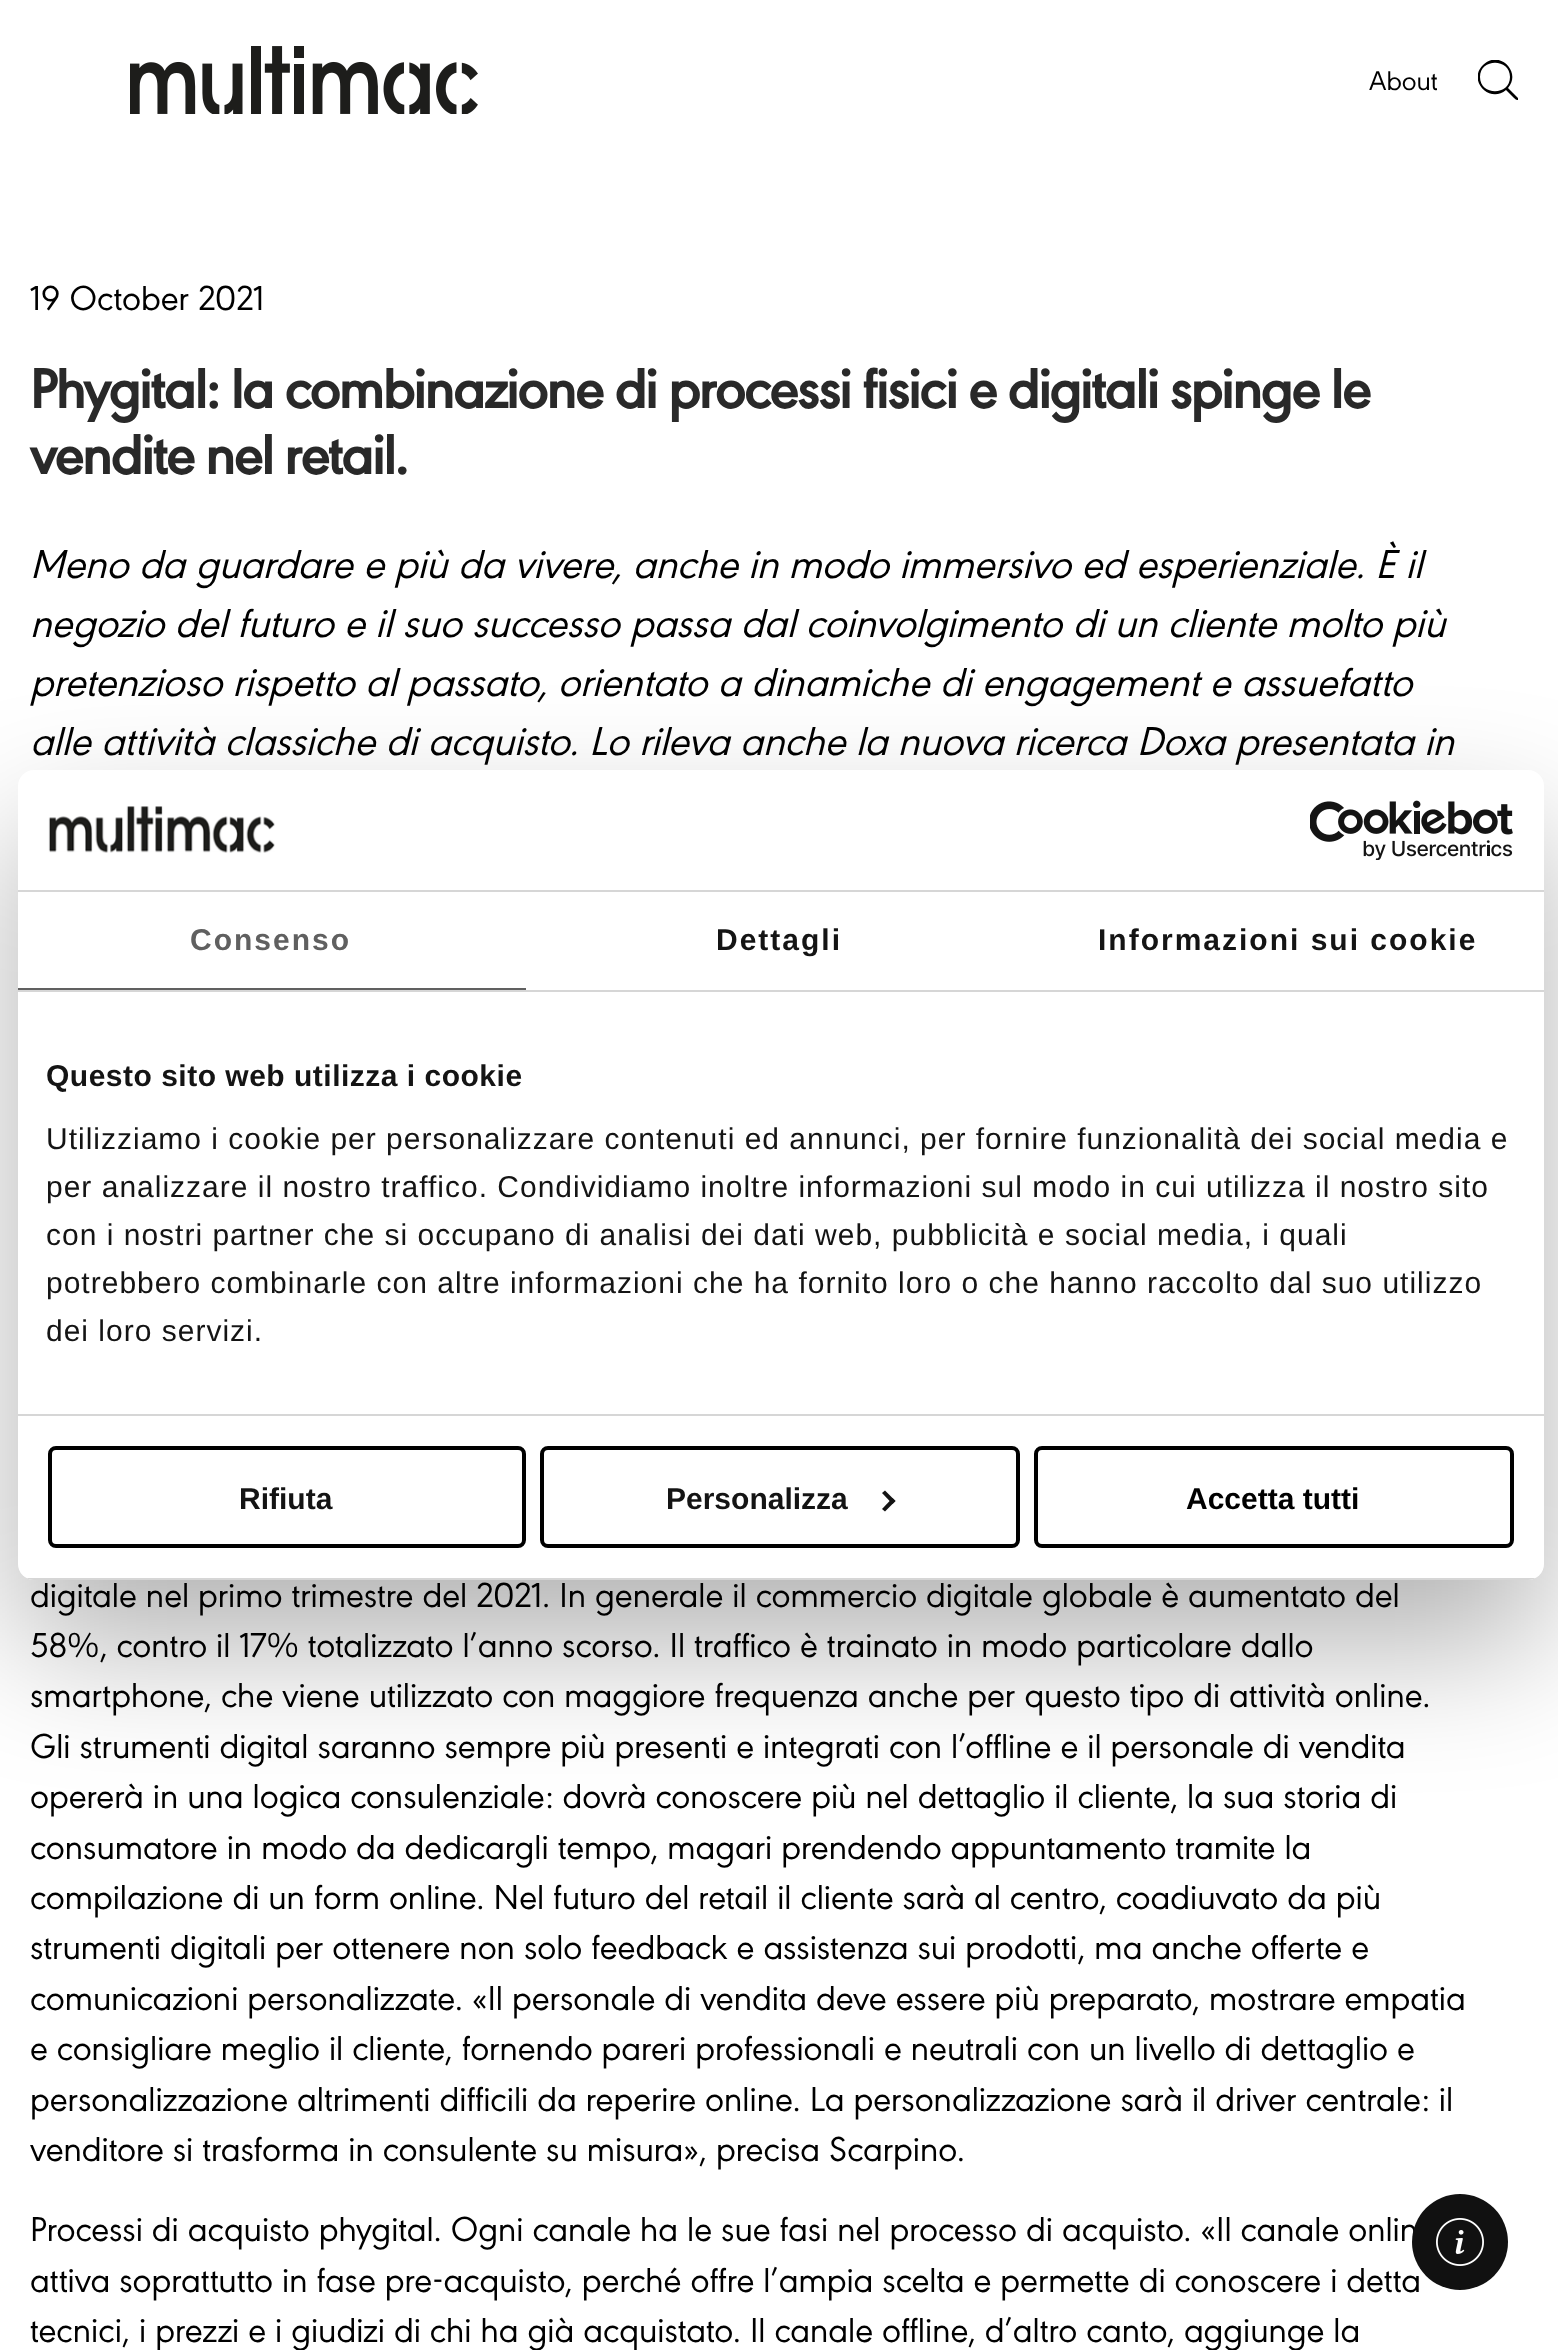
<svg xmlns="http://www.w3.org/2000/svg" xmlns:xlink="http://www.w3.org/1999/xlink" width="1558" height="2350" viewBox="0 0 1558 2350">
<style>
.cls-1{font:28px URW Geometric;fill:#000000}
.cls-2{font:36px URW Geometric;fill:#000000}
.cls-3{font:bold 60px URW Geometric;letter-spacing:-2px;fill:#292929}
.cls-4{font:italic 42px URW Geometric;fill:#000000}
.cls-5{font:bold 30px Liberation Sans;letter-spacing:2px;fill:#606060}
.cls-6{font:bold 30px Liberation Sans;letter-spacing:2px;fill:#141414}
.cls-7{font:bold 30px Liberation Sans;letter-spacing:0.5px;fill:#141414}
.cls-8{font:30px Liberation Sans;letter-spacing:1px;fill:#141414}
.cls-9{font:bold 30px Liberation Sans;fill:#141414}
.cls-10{font:bold 30px Liberation Sans;fill:#000000}
</style>
<defs>
<clipPath id="clip1"><rect x="1478" y="60" width="40" height="40"/></clipPath>
<clipPath id="clip2"><rect x="18" y="770" width="1526" height="810" rx="16"/></clipPath>
</defs>
<rect width="100%" height="100%" fill="#ffffff"/>
<image xlink:href="image0.png" x="130" y="46" width="348" height="68"/>
<g clip-path="url(#clip1)">
<path fill="#000000" d="M1518 98L1508 88C1522 72 1499 49 1483 65C1467 81 1490 104 1506 90L1514 98C1518 102 1519 99 1518 98ZM1480 77C1480 58 1510 58 1510 77C1510 96 1480 96 1480 77Z"/>
</g>
<rect fill="#000000" fill-opacity="0.3" filter="blur(68px)" x="18" y="834" width="1526" height="810" rx="16"/>
<rect fill="#ffffff" x="18" y="770" width="1526" height="810" rx="16"/>
<rect fill="#d6d6d6" x="18" y="890" width="1526" height="2"/>
<image xlink:href="image1.png" x="48" y="806" width="227" height="47"/>
<image xlink:href="image2.png" x="1310" y="800" width="203" height="60"/>
<rect fill="#d6d6d6" x="18" y="990" width="1526" height="2"/>
<rect fill="#606060" x="18" y="988" width="508" height="2"/>
<rect fill="#d6d6d6" x="18" y="1414" width="1526" height="2"/>
<g clip-path="url(#clip2)">
<rect fill="#d6d6d6" x="18" y="1578" width="1526" height="2"/>
</g>
<rect fill="none" stroke="#000000" stroke-width="4" x="50" y="1448" width="474" height="98" rx="6"/>
<rect fill="none" stroke="#000000" stroke-width="4" x="542" y="1448" width="476" height="98" rx="6"/>
<path fill="#141414" d="M885 1490.5L895.5 1501L892.5 1504L882 1493Z"/>
<path fill="#141414" d="M892.5 1498L895.5 1501L885 1511.5L882 1509Z"/>
<rect fill="none" stroke="#000000" stroke-width="4" x="1036" y="1448" width="476" height="98" rx="6"/>
<text class="cls-1" x="1369" y="90">About</text>
<text class="cls-2" x="30" y="310">19 October 2021</text>
<text class="cls-3"><tspan x="30" y="408">Phygital: la combinazione di processi fisici e digitali spinge le</tspan><tspan x="30" y="474">vendite nel retail.</tspan></text>
<text class="cls-4"><tspan x="30" y="578">Meno da guardare e più da vivere, anche in modo immersivo ed esperienziale. È il</tspan><tspan x="30" y="637">negozio del futuro e il suo successo passa dal coinvolgimento di un cliente molto più</tspan><tspan x="30" y="696">pretenzioso rispetto al passato, orientato a dinamiche di engagement e assuefatto</tspan><tspan x="30" y="755">alle attività classiche di acquisto. Lo rileva anche la nuova ricerca Doxa presentata in</tspan></text>
<text class="cls-2"><tspan x="30" y="1607">digitale nel primo trimestre del 2021. In generale il commercio digitale globale è aumentato del</tspan><tspan x="30" y="1657">58%, contro il 17% totalizzato l’anno scorso. Il traffico è trainato in modo particolare dallo</tspan><tspan x="30" y="1707">smartphone, che viene utilizzato con maggiore frequenza anche per questo tipo di attività online.</tspan><tspan x="30" y="1758">Gli strumenti digital saranno sempre più presenti e integrati con l’offline e il personale di vendita</tspan><tspan x="30" y="1808">opererà in una logica consulenziale: dovrà conoscere più nel dettaglio il cliente, la sua storia di</tspan><tspan x="30" y="1859">consumatore in modo da dedicargli tempo, magari prendendo appuntamento tramite la</tspan><tspan x="30" y="1909">compilazione di un form online. Nel futuro del retail il cliente sarà al centro, coadiuvato da più</tspan><tspan x="30" y="1959">strumenti digitali per ottenere non solo feedback e assistenza sui prodotti, ma anche offerte e</tspan><tspan x="30" y="2010">comunicazioni personalizzate. «Il personale di vendita deve essere più preparato, mostrare empatia</tspan><tspan x="30" y="2060">e consigliare meglio il cliente, fornendo pareri professionali e neutrali con un livello di dettaglio e</tspan><tspan x="30" y="2111">personalizzazione altrimenti difficili da reperire online. La personalizzazione sarà il driver centrale: il</tspan><tspan x="30" y="2161">venditore si trasforma in consulente su misura», precisa Scarpino.</tspan></text>
<text class="cls-2"><tspan x="30" y="2241">Processi di acquisto phygital. Ogni canale ha le sue fasi nel processo di acquisto. «Il canale onlin</tspan><tspan x="30" y="2292">attiva soprattutto in fase pre-acquisto, perché offre l’ampia scelta e permette di conoscere i detta</tspan><tspan x="30" y="2342">tecnici, i prezzi e i giudizi di chi ha già acquistato. Il canale offline, d’altro canto, aggiunge la</tspan></text>
<text class="cls-5" x="190" y="950">Consenso</text>
<text class="cls-6" x="716" y="950">Dettagli</text>
<text class="cls-6" x="1098" y="950">Informazioni sui cookie</text>
<text class="cls-7" x="46" y="1086">Questo sito web utilizza i cookie</text>
<text class="cls-8"><tspan x="46" y="1149">Utilizziamo i cookie per personalizzare contenuti ed annunci, per fornire funzionalità dei social media e</tspan><tspan x="46" y="1197">per analizzare il nostro traffico. Condividiamo inoltre informazioni sul modo in cui utilizza il nostro sito</tspan><tspan x="46" y="1245">con i nostri partner che si occupano di analisi dei dati web, pubblicità e social media, i quali</tspan><tspan x="46" y="1293">potrebbero combinarle con altre informazioni che ha fornito loro o che hanno raccolto dal suo utilizzo</tspan><tspan x="46" y="1341">dei loro servizi.</tspan></text>
<text class="cls-9" x="239" y="1509">Rifiuta</text>
<text class="cls-9" x="666" y="1509">Personalizza</text>
<text class="cls-10" x="1186" y="1509">Accetta tutti</text>
<circle fill="#111111" cx="1460" cy="2242" r="48"/>
<image xlink:href="image3.png" x="1436" y="2218" width="48" height="48"/>
</svg>
